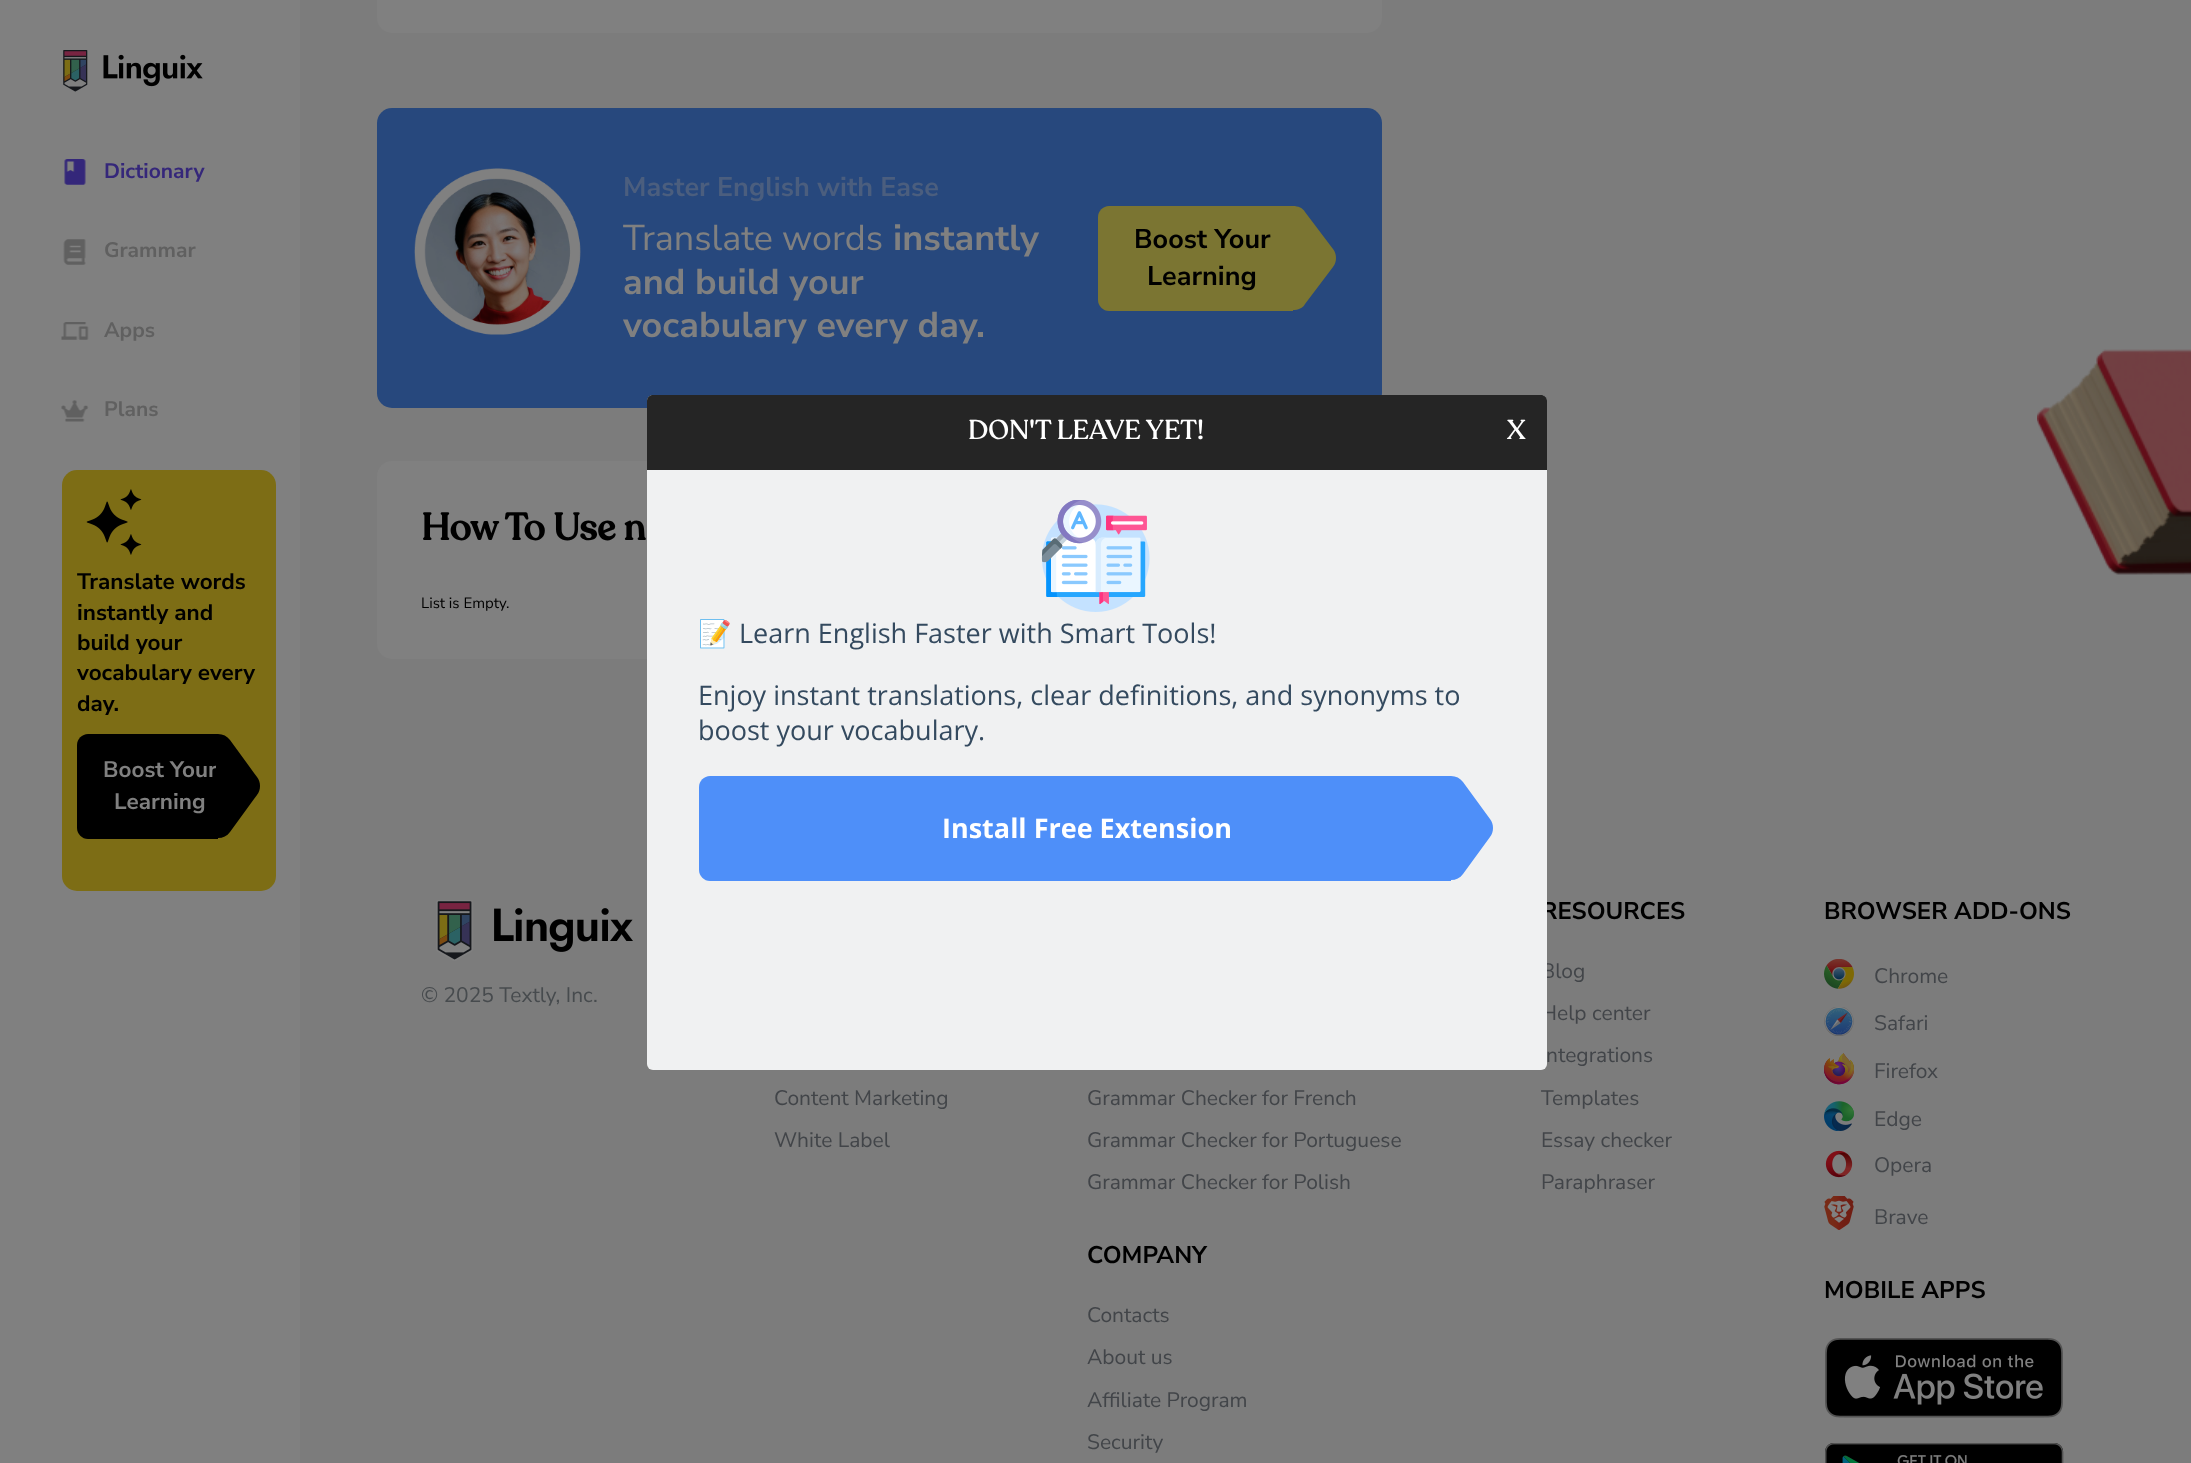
<svg xmlns="http://www.w3.org/2000/svg" xmlns:xlink="http://www.w3.org/1999/xlink" width="2191" height="1463" viewBox="0 0 2191 1463">
<style>
.cls-1{font:bold 21px Nunito Sans;fill:#35277a}
.cls-2{font:bold 21px Nunito Sans;fill:#606060}
.cls-3{font:bold 22.5px Nunito Sans;fill:#000000}
.cls-4{font:bold 22.5px Nunito Sans;fill:#808080}
.cls-5{font:bold 27px Nunito Sans;fill:#4b5e7e}
.cls-6{font:36px Nunito Sans;fill:#808080}
.cls-7{font:bold 36px Nunito Sans;fill:#808080}
.cls-8{font:bold 27px Nunito Sans;fill:#000000}
.cls-9{font:bold 37.5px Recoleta;fill:#000000}
.cls-10{font:15px Nunito Sans;fill:#000000}
.cls-11{font:21px Nunito Sans;fill:#474b4e}
.cls-12{font:bold 24px Nunito Sans;fill:#000000}
.cls-13{font:21px Nunito Sans;fill:#424549}
.cls-14{font:500 27px Recoleta;fill:#ffffff}
.cls-15{font:27px Noto Color Emoji;fill:#344a5f}
.cls-16{font:27px Open Sans;fill:#344a5f}
.cls-17{font:bold 27px Open Sans;fill:#ffffff}
</style>
<defs>
<clipPath id="clip1"><rect x="1292" y="206" width="45" height="105"/></clipPath>
<clipPath id="clip2"><rect x="216" y="734" width="45" height="105"/></clipPath>
<clipPath id="clip3"><rect x="1449" y="776" width="45" height="105"/></clipPath>
</defs>
<rect width="100%" height="100%" fill="#7c7c7c"/>
<rect fill="#808080" x="0" y="0" width="300" height="1463"/>
<image xlink:href="image0.png" x="63" y="50" width="140" height="42"/>
<image xlink:href="image1.png" x="64" y="159" width="22" height="26"/>
<image xlink:href="image2.png" x="63" y="239" width="23" height="26"/>
<image xlink:href="image3.png" x="61" y="322" width="28" height="18"/>
<image xlink:href="image4.png" x="61" y="400" width="28" height="22"/>
<rect fill="#7d6d15" x="62" y="470" width="214" height="421" rx="15"/>
<image xlink:href="image5.png" x="86" y="489" width="56" height="66"/>
<path fill="#000000" d="M88 734H218V839H88C82 839 77 834 77 828V745C77 739 82 734 88 734Z"/>
<rect fill="#808080" x="377" y="-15" width="1005" height="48" rx="15"/>
<rect fill="#27487d" x="377" y="108" width="1005" height="300" rx="15"/>
<image xlink:href="image6.png" x="414" y="168" width="167" height="167"/>
<path fill="#7b7532" d="M1109 206H1293V311H1109C1103 311 1098 306 1098 300V217C1098 211 1103 206 1109 206Z"/>
<g clip-path="url(#clip1)">
<path fill="#7b7532" d="M1036 220C1036 212 1043 206 1052 206H1293C1298 206 1303 208 1305 212L1333 249C1337 254 1337 262 1333 267L1305 304C1303 308 1298 310 1293 310H1052C1043 310 1036 304 1036 296Z"/>
</g>
<rect fill="#808080" x="377" y="461" width="1005" height="198" rx="15"/>
<image xlink:href="image7.png" x="2037" y="349" width="154" height="226"/>
<image xlink:href="image8.png" x="436" y="900" width="197" height="61"/>
<image xlink:href="image9.png" x="1824" y="959" width="30" height="30"/>
<image xlink:href="image10.png" x="1824" y="1007" width="30" height="29"/>
<image xlink:href="image11.png" x="1824" y="1053" width="30" height="32"/>
<image xlink:href="image12.png" x="1824" y="1101" width="30" height="30"/>
<image xlink:href="image13.png" x="1825" y="1150" width="28" height="28"/>
<image xlink:href="image14.png" x="1824" y="1196" width="30" height="34"/>
<image xlink:href="image15.png" x="1825" y="1338" width="238" height="80"/>
<image xlink:href="image16.png" x="1825" y="1443" width="239" height="20"/>
<text class="cls-1" x="104" y="178">Dictionary</text>
<text class="cls-2" x="104" y="257">Grammar</text>
<text class="cls-2" x="104" y="337">Apps</text>
<text class="cls-2" x="104" y="416">Plans</text>
<text class="cls-3"><tspan x="77" y="589">Translate words</tspan><tspan x="77" y="620">instantly and</tspan><tspan x="77" y="650">build your</tspan><tspan x="77" y="680">vocabulary every</tspan><tspan x="77" y="711">day.</tspan></text>
<text class="cls-4" x="103" y="777">Boost Your</text>
<g clip-path="url(#clip2)">
<path fill="#000000" d="M-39 748C-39 740-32 734-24 734H218C223 734 227 736 230 740L257 777C261 782 261 790 257 795L230 832C227 836 223 838 218 838H-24C-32 838-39 832-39 824Z"/>
</g>
<text class="cls-4" x="114" y="809">Learning</text>
<text class="cls-5" x="623" y="196">Master English with Ease</text>
<text class="cls-6" x="623" y="250">Translate words</text>
<text class="cls-7" x="893" y="250">instantly</text>
<text class="cls-7"><tspan x="623" y="294">and build your</tspan><tspan x="623" y="337">vocabulary every day.</tspan></text>
<text class="cls-8" x="1134" y="248">Boost Your</text>
<text class="cls-8" x="1147" y="285">Learning</text>
<text class="cls-9" x="421" y="540">How To Use n</text>
<text class="cls-10" x="421" y="608">List is Empty.</text>
<text class="cls-11" x="421" y="1002">© 2025 Textly, Inc.</text>
<text class="cls-12" x="1541" y="919">RESOURCES</text>
<text class="cls-13" x="1541" y="978">Blog</text>
<text class="cls-13" x="1541" y="1020">Help center</text>
<text class="cls-13" x="1546" y="1062">ntegrations</text>
<text class="cls-13" x="1541" y="1105">Templates</text>
<text class="cls-13" x="1541" y="1147">Essay checker</text>
<text class="cls-13" x="1541" y="1189">Paraphraser</text>
<text class="cls-12" x="1824" y="919">BROWSER ADD-ONS</text>
<text class="cls-13" x="1874" y="983">Chrome</text>
<text class="cls-13" x="1874" y="1030">Safari</text>
<text class="cls-13" x="1874" y="1078">Firefox</text>
<text class="cls-13" x="1874" y="1126">Edge</text>
<text class="cls-13" x="1874" y="1172">Opera</text>
<text class="cls-13" x="1874" y="1224">Brave</text>
<text class="cls-12" x="1824" y="1298">MOBILE APPS</text>
<text class="cls-13" x="774" y="1105">Content Marketing</text>
<text class="cls-13" x="774" y="1147">White Label</text>
<text class="cls-13" x="1087" y="1105">Grammar Checker for French</text>
<text class="cls-13" x="1087" y="1147">Grammar Checker for Portuguese</text>
<text class="cls-13" x="1087" y="1189">Grammar Checker for Polish</text>
<text class="cls-12" x="1087" y="1263">COMPANY</text>
<text class="cls-13" x="1087" y="1322">Contacts</text>
<text class="cls-13" x="1087" y="1364">About us</text>
<text class="cls-13" x="1087" y="1407">Affiliate Program</text>
<text class="cls-13" x="1087" y="1449">Security</text>
<rect fill="#f0f1f2" x="647" y="395" width="900" height="675" rx="6"/>
<path fill="#252525" d="M653 395H1541C1544.5 395 1547 397.5 1547 401V470H647V401C647 397.5 649.5 395 653 395Z"/>
<text class="cls-14" x="968" y="439">DON'T LEAVE YET!</text>
<text class="cls-14" x="1507" y="439">X</text>
<image xlink:href="image17.png" x="1041" y="500" width="109" height="112"/>
<text class="cls-15" x="698" y="643">📝</text>
<text class="cls-16" x="739" y="643">Learn English Faster with Smart Tools!</text>
<text class="cls-16"><tspan x="698" y="705">Enjoy instant translations, clear definitions, and synonyms to</tspan><tspan x="698" y="740">boost your vocabulary.</tspan></text>
<path fill="#4e8ff9" d="M710 776H1451V881H710C704 881 699 876 699 870V787C699 781 704 776 710 776Z"/>
<text class="cls-17" x="942" y="838">Install Free Extension</text>
<g clip-path="url(#clip3)">
<path fill="#4e8ff9" d="M1194 790C1194 782 1201 776 1209 776H1451C1456 776 1460 778 1463 782L1490 819C1494 824 1494 832 1490 837L1463 874C1460 878 1456 880 1451 880H1209C1201 880 1194 874 1194 866Z"/>
</g>
</svg>
